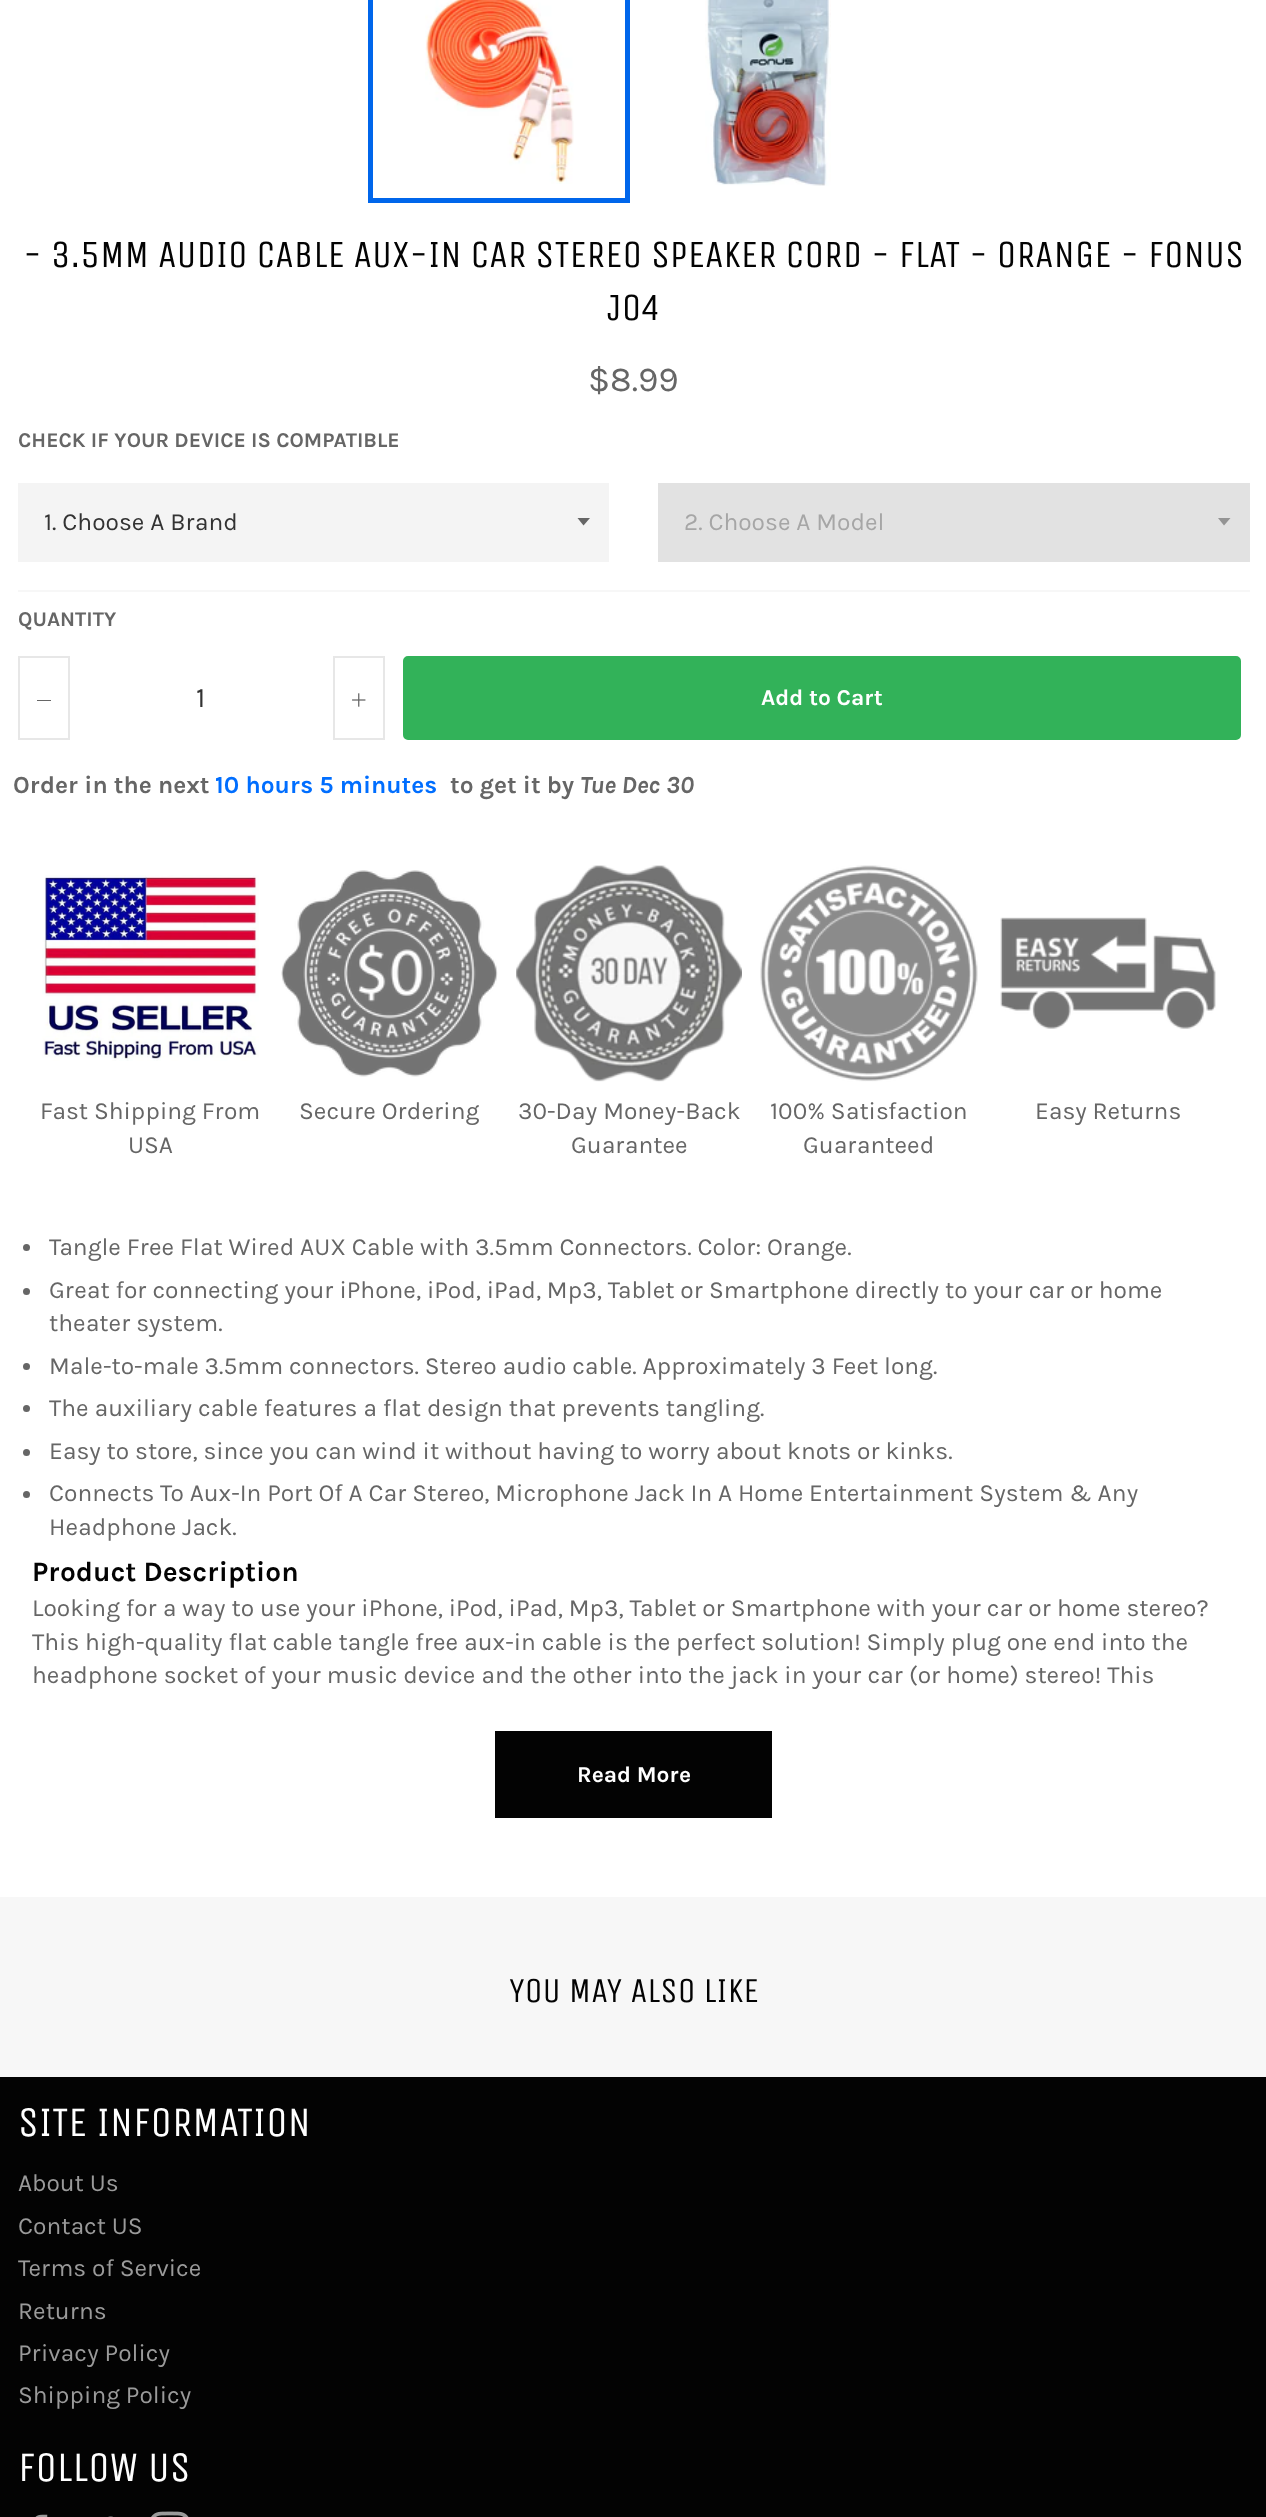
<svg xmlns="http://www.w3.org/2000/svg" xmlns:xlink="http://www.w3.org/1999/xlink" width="1266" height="2517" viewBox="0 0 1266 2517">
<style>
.cls-1{font:38.5px Unica One;fill:#030303}
.cls-2{font:35px Karla;fill:#666666}
.cls-3{font:bold 21px Karla;fill:#666666}
.cls-4{font:24.5px Karla;fill:#333333}
.cls-5{font:24.5px Karla;fill:#a6a6a6}
.cls-6{font:28px Karla;fill:#333333}
.cls-7{font:bold 22.75px Karla;fill:#ffffff}
.cls-8{font:bold 24.5px Karla;fill:#666666}
.cls-9{font:bold 24.5px Karla;fill:#006eff}
.cls-10{font:italic bold 24.5px Karla;fill:#666666}
.cls-11{font:24.5px Karla;fill:#666666}
.cls-12{font:bold 28px Karla;fill:#030303}
.cls-13{font:35px Unica One;fill:#030303}
.cls-14{font:42px Unica One;fill:#ffffff}
.cls-15{font:24.5px Karla;fill:#9a9a9a}
</style>
<rect width="100%" height="100%" fill="#f7f7f7"/>
<rect fill="#ffffff" x="0" y="0" width="1266" height="1897"/>
<image xlink:href="image0.png" x="425" y="0" width="149" height="184"/>
<rect fill="none" stroke="#0066eb" stroke-width="5" x="370.5" y="-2.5" width="257" height="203"/>
<image xlink:href="image1.png" x="705" y="0" width="126" height="186"/>
<rect fill="#f4f4f4" x="18" y="483" width="591" height="79"/>
<path fill="#666666" d="M577.5 518L583.5 525.5L590 518Z"/>
<rect fill="#e2e2e2" x="658" y="483" width="592" height="79"/>
<path fill="#949494" d="M1218 518L1224 525.5L1230.5 518Z"/>
<rect fill="#f7f7f7" x="18" y="590" width="1232" height="2"/>
<rect fill="none" stroke="#e7e7e7" stroke-width="2" x="19" y="657" width="50" height="82"/>
<rect fill="#666666" x="37" y="700" width="14" height="1"/>
<rect fill="none" stroke="#e7e7e7" stroke-width="2" x="334" y="657" width="50" height="82"/>
<image xlink:href="image2.png" x="352" y="693" width="14" height="14"/>
<rect fill="#32b259" stroke="#32b259" stroke-width="2" x="404" y="657" width="836" height="82" rx="4"/>
<image xlink:href="image3.png" x="42" y="875" width="217" height="186"/>
<image xlink:href="image4.png" x="281" y="870" width="217" height="207"/>
<image xlink:href="image5.png" x="516" y="865" width="226" height="217"/>
<image xlink:href="image6.png" x="760" y="865" width="218" height="217"/>
<image xlink:href="image7.png" x="1000" y="917" width="216" height="112"/>
<circle fill="#666666" cx="26.5" cy="1247.5" r="3.5"/>
<circle fill="#666666" cx="26.5" cy="1291.5" r="3.5"/>
<circle fill="#666666" cx="26.5" cy="1366.5" r="3.5"/>
<circle fill="#666666" cx="26.5" cy="1408.5" r="3.5"/>
<circle fill="#666666" cx="26.5" cy="1452.5" r="3.5"/>
<circle fill="#666666" cx="26.5" cy="1494.5" r="3.5"/>
<rect fill="#030303" x="495" y="1731" width="277" height="87"/>
<rect fill="#030303" x="0" y="2077" width="1266" height="440"/>
<image xlink:href="image8.png" x="35" y="2514" width="13" height="3"/>
<image xlink:href="image9.png" x="108" y="2516" width="5" height="1"/>
<image xlink:href="image10.png" x="151" y="2511" width="38" height="6"/>
<text class="cls-1" x="23" y="267">- 3.5MM AUDIO CABLE AUX-IN CAR STEREO SPEAKER CORD - FLAT - ORANGE - FONUS</text>
<text class="cls-1" x="607" y="320">J04</text>
<text class="cls-2" x="588" y="391">$8.99</text>
<text class="cls-3" x="18" y="447">CHECK IF YOUR DEVICE IS COMPATIBLE</text>
<text class="cls-4" x="44" y="530">1. Choose A Brand</text>
<text class="cls-5" x="684" y="530">2. Choose A Model</text>
<text class="cls-3" x="18" y="626">QUANTITY</text>
<text class="cls-6" x="196" y="707">1</text>
<text class="cls-7" x="761" y="705">Add to Cart</text>
<text class="cls-8" x="13" y="793">Order in the next</text>
<text class="cls-9" x="215" y="793">10 hours 5 minutes</text>
<text class="cls-8" x="450" y="793">to get it by</text>
<text class="cls-10" x="580" y="793">Tue Dec 30</text>
<text class="cls-11" x="40" y="1119">Fast Shipping From</text>
<text class="cls-11" x="128" y="1153">USA</text>
<text class="cls-11" x="299" y="1119">Secure Ordering</text>
<text class="cls-11" x="518" y="1119">30-Day Money-Back</text>
<text class="cls-11" x="571" y="1153">Guarantee</text>
<text class="cls-11" x="770" y="1119">100% Satisfaction</text>
<text class="cls-11" x="803" y="1153">Guaranteed</text>
<text class="cls-11" x="1035" y="1119">Easy Returns</text>
<text class="cls-11"><tspan x="49" y="1255">Tangle Free Flat Wired AUX Cable with 3.5mm Connectors. Color: Orange.</tspan><tspan x="49" y="1298">Great for connecting your iPhone, iPod, iPad, Mp3, Tablet or Smartphone directly to your car or home</tspan><tspan x="49" y="1331">theater system.</tspan><tspan x="49" y="1374">Male-to-male 3.5mm connectors. Stereo audio cable. Approximately 3 Feet long.</tspan><tspan x="49" y="1416">The auxiliary cable features a flat design that prevents tangling.</tspan><tspan x="49" y="1459">Easy to store, since you can wind it without having to worry about knots or kinks.</tspan><tspan x="49" y="1501">Connects To Aux-In Port Of A Car Stereo, Microphone Jack In A Home Entertainment System &amp; Any</tspan><tspan x="49" y="1535">Headphone Jack.</tspan></text>
<text class="cls-12" x="32" y="1581">Product Description</text>
<text class="cls-11"><tspan x="32" y="1616">Looking for a way to use your iPhone, iPod, iPad, Mp3, Tablet or Smartphone with your car or home stereo?</tspan><tspan x="32" y="1650">This high-quality flat cable tangle free aux-in cable is the perfect solution! Simply plug one end into the</tspan><tspan x="32" y="1683">headphone socket of your music device and the other into the jack in your car (or home) stereo! This</tspan></text>
<text class="cls-7" x="577" y="1782">Read More</text>
<text class="cls-13" x="509" y="2002">YOU MAY ALSO LIKE</text>
<text class="cls-14" x="18" y="2136">SITE INFORMATION</text>
<text class="cls-15"><tspan x="18" y="2191">About Us</tspan><tspan x="18" y="2234">Contact US</tspan><tspan x="18" y="2276">Terms of Service</tspan><tspan x="18" y="2319">Returns</tspan><tspan x="18" y="2361">Privacy Policy</tspan><tspan x="18" y="2403">Shipping Policy</tspan></text>
<text class="cls-14" x="18" y="2481">FOLLOW US</text>
</svg>
